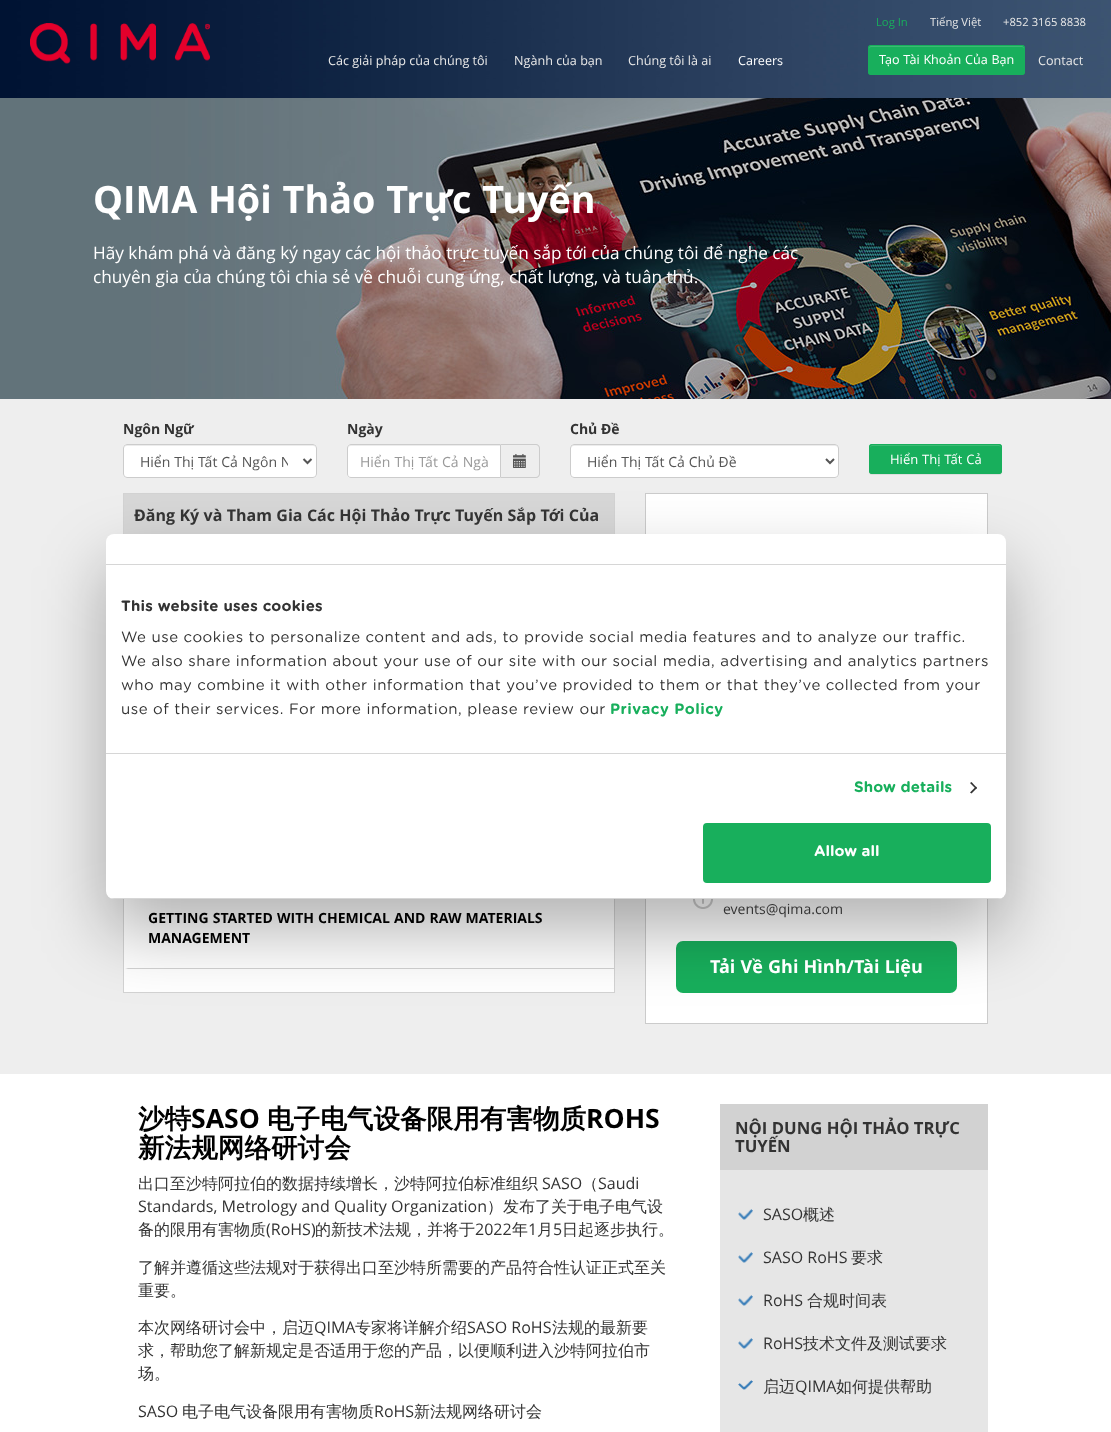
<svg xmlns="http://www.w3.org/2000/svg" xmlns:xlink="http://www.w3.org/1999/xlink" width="1111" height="1432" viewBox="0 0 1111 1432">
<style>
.cls-1{font:11.25px Open Sans;fill:#18af5c}
.cls-2{font:11.25px Open Sans;fill:#e7e7e7}
.cls-3{font:12.6px Open Sans;fill:#e7e7e7}
.cls-4{font:12.6px Open Sans;fill:#ffffff}
.cls-5{font:bold 37.75px Open Sans;fill:#ffffff}
.cls-6{font:17.2px Open Sans;fill:#ffffff}
.cls-7{font:bold 14px Open Sans;fill:#333333}
.cls-8{font:14px Open Sans;fill:#555555}
.cls-9{font:14px Open Sans;fill:#999999}
.cls-10{font:13px Open Sans;fill:#ffffff}
.cls-11{font:bold 16px Open Sans;fill:#333333}
.cls-12{font:bold 14px Open Sans;fill:#000000}
.cls-13{font:14px Open Sans;fill:#333333}
.cls-14{font:bold 18px Open Sans;fill:#ffffff}
.cls-15{font:bold 26.6px WenQuanYi Zen Hei;fill:#000000}
.cls-16{font:bold 26.6px Open Sans;fill:#000000}
.cls-17{font:500 16px WenQuanYi Zen Hei;fill:#333333}
.cls-18{font:16px Open Sans;fill:#333333}
.cls-19{font:bold 16.7px Open Sans;fill:#333333}
.cls-20{font:bold 15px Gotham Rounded;letter-spacing:0.25px;fill:#333333}
.cls-21{font:15px Gotham Rounded;letter-spacing:0.5px;fill:#333333}
.cls-22{font:bold 15px Gotham Rounded;letter-spacing:0.5px;fill:#18af5c}
.cls-23{font:bold 15px Gotham Rounded;letter-spacing:0.1px;fill:#18af5c}
.cls-24{font:bold 15px Gotham Rounded;fill:#ffffff}
</style>
<defs>
<clipPath id="clip1"><rect x="106" y="534" width="900" height="365" rx="8"/></clipPath>
<clipPath id="clip2"><rect x="140" y="451" width="148" height="21"/></clipPath>
</defs>
<rect width="100%" height="100%" fill="#ffffff"/>
<image xlink:href="image0.png" x="0" y="0" width="1111" height="69"/>
<image xlink:href="image1.png" x="0" y="69" width="1111" height="29"/>
<image xlink:href="image2.png" x="30" y="23" width="180" height="41"/>
<rect fill="#18af5c" x="868" y="45" width="157" height="30" rx="3"/>
<path fill="#3bbb74" d="M871 47H1022C1023 47 1024 48 1024 49C1024 48 1024 46 1022 46H870C869 47 869 48 869 49C869 48 870 47 871 47Z"/>
<rect fill="none" stroke="#18af5c" x="868.5" y="45.5" width="156" height="29" rx="2.5"/>
<image xlink:href="image3.png" x="0" y="98" width="1111" height="301"/>
<rect fill="#eeeeee" x="0" y="399" width="1111" height="675"/>
<rect fill="#ffffff" x="123" y="444" width="194" height="34" rx="4"/>
<path fill="#ececec" d="M127 446H313C315 446 316 447 316 449C316 447 315 445 313 445H127C125 445 124 447 124 449C124 447 125 446 127 446Z"/>
<rect fill="none" stroke="#cccccc" x="123.5" y="444.5" width="193" height="33" rx="3.5"/>
<path fill="none" stroke="#555555" stroke-width="2" d="M303.5 459L307.5 463L311.5 459"/>
<path fill="#ffffff" d="M351 444H501V478H351C349 478 347 476 347 474V448C347 446 349 444 351 444Z"/>
<path fill="#ececec" d="M351 446H500V445H350C348 445 348 447 348 449C348 447 349 446 351 446Z"/>
<path fill="none" stroke="#cccccc" d="M351 444.5H500.5V477.5H351C349 477.5 347.5 476 347.5 474V448C347.5 446 349 444.5 351 444.5Z"/>
<path fill="#cccccc" fill-rule="evenodd" d="M501 444H536C538 444 540 446 540 448V474C540 476 538 478 536 478H501ZM501 445H536C537.5 445 539 446.5 539 448V474C539 475.5 537.5 477 536 477H501Z"/>
<image xlink:href="image4.png" x="513" y="454" width="13" height="14"/>
<rect fill="#ffffff" x="570" y="444" width="269" height="34" rx="4"/>
<path fill="#ececec" d="M574 446H835C837 446 838 447 838 449V448C838 446 837 445 835 445H574C572 445 571 446 571 448V449C571 447 572 446 574 446Z"/>
<rect fill="none" stroke="#cccccc" x="570.5" y="444.5" width="268" height="33" rx="3.5"/>
<path fill="none" stroke="#555555" stroke-width="2" d="M826 459L830 463L834 459"/>
<rect fill="#000000" fill-opacity="0.07" filter="blur(0.5px)" x="869" y="445" width="133" height="30" rx="3"/>
<rect fill="#18af5c" x="869" y="444" width="133" height="30" rx="3"/>
<path fill="#3bbb74" d="M872 446H999C1000 446 1001 447 1001 448C1001 447 1001 445 999 445H872C870 445 870 447 870 448C870 447 871 446 872 446Z"/>
<rect fill="none" stroke="#18af5c" x="869.5" y="444.5" width="132" height="29" rx="2.5"/>
<rect fill="#ffffff" x="124" y="899" width="490" height="93"/>
<rect fill="none" stroke="#d3d3d3" x="123.5" y="493.5" width="491" height="499"/>
<rect fill="#d7d7d7" x="124" y="494" width="490" height="40"/>
<path fill="#d3d3d3" d="M614 969H124L128 968H614Z"/>
<path fill="#ffffff" d="M124 969V868H128V968Z"/>
<rect fill="#ffffff" stroke="#cbcbcb" x="645.5" y="493.5" width="342" height="530"/>
<image xlink:href="image5.png" x="693" y="899" width="20" height="10"/>
<rect fill="#18af5c" x="676" y="941" width="281" height="52" rx="7"/>
<rect fill="#e6e6e6" x="720" y="1170" width="268" height="262"/>
<rect fill="#d2d2d2" x="720" y="1104" width="268" height="66"/>
<image xlink:href="image6.png" x="738" y="1209" width="15" height="11"/>
<image xlink:href="image6.png" x="738" y="1252" width="15" height="11"/>
<image xlink:href="image6.png" x="738" y="1295" width="15" height="11"/>
<image xlink:href="image7.png" x="738" y="1338" width="15" height="11"/>
<image xlink:href="image8.png" x="738" y="1380" width="15" height="10"/>
<rect fill="#000000" fill-opacity="0.3" filter="blur(34px)" x="106" y="566" width="900" height="365" rx="8"/>
<rect fill="#ffffff" x="106" y="534" width="900" height="365" rx="8"/>
<rect fill="#d6d6d6" x="106" y="564" width="900" height="1"/>
<rect fill="#d6d6d6" x="106" y="753" width="900" height="1"/>
<path fill="#333333" d="M971.5 782L977 788L976 789L970 783Z"/>
<path fill="#333333" d="M976 786.5L977 788L971.5 793.5L970 792.5Z"/>
<g clip-path="url(#clip1)">
<rect fill="#d6d6d6" x="106" y="898" width="900" height="1"/>
</g>
<rect fill="#18af5c" stroke="#18af5c" stroke-width="2" x="704" y="824" width="286" height="58" rx="3"/>
<text class="cls-1" x="876" y="26">Log In</text>
<text class="cls-2" x="930" y="26">Tiếng Việt</text>
<text class="cls-2" x="1003" y="26">+852 3165 8838</text>
<text class="cls-3" x="328" y="65">Các giải pháp của chúng tôi</text>
<text class="cls-3" x="514" y="65">Ngành của bạn</text>
<text class="cls-3" x="628" y="65">Chúng tôi là ai</text>
<text class="cls-4" x="738" y="65">Careers</text>
<text class="cls-4" x="879" y="64" word-spacing="0.5">Tạo Tài Khoản Của Bạn</text>
<text class="cls-3" x="1038" y="65">Contact</text>
<text class="cls-5" x="93" y="213" word-spacing="1">QIMA Hội Thảo Trực Tuyến</text>
<text class="cls-6"><tspan x="93" y="259">Hãy khám phá và đăng ký ngay các hội thảo trực tuyến sắp tới của chúng tôi để nghe các</tspan><tspan x="93" y="283">chuyên gia của chúng tôi chia sẻ về chuỗi cung ứng, chất lượng, và tuân thủ.</tspan></text>
<text class="cls-7" x="123" y="434">Ngôn Ngữ</text>
<g clip-path="url(#clip2)">
<text class="cls-8" x="140" y="467" word-spacing="0.25">Hiển Thị Tất Cả Ngôn N</text>
</g>
<text class="cls-7" x="347" y="434">Ngày</text>
<text class="cls-9" x="360" y="467" word-spacing="0.5">Hiển Thị Tất Cả Ngà</text>
<text class="cls-7" x="570" y="434">Chủ Đề</text>
<text class="cls-8" x="587" y="467" word-spacing="0.25">Hiển Thị Tất Cả Chủ Đề</text>
<text class="cls-10" x="890" y="464" word-spacing="0.5">Hiển Thị Tất Cả</text>
<text class="cls-11" x="134" y="521" word-spacing="0.25">Đăng Ký và Tham Gia Các Hội Thảo Trực Tuyến Sắp Tới Của</text>
<text class="cls-12"><tspan x="148" y="923" word-spacing="0.5">GETTING STARTED WITH CHEMICAL AND RAW MATERIALS</tspan><tspan x="148" y="943">MANAGEMENT</tspan></text>
<text class="cls-13" x="723" y="914">events@qima.com</text>
<text class="cls-14" x="710" y="973" word-spacing="0.5">Tải Về Ghi Hình/Tài Liệu</text>
<text class="cls-15" x="138" y="1128">沙特</text>
<text class="cls-16" x="191" y="1128">SASO</text>
<text class="cls-15" x="267" y="1128">电子电气设备限用有害物质</text>
<text class="cls-16" x="586" y="1128">ROHS</text>
<text class="cls-15" x="138" y="1157">新法规网络研讨会</text>
<text class="cls-17" x="138" y="1189">出口至沙特阿拉伯的数据持续增长，沙特阿拉伯标准组织</text>
<text class="cls-18" x="542" y="1189">SASO</text>
<text class="cls-17" x="582" y="1189">（</text>
<text class="cls-18" x="598" y="1189">Saudi</text>
<text class="cls-18" x="138" y="1212">Standards, Metrology and Quality Organization</text>
<text class="cls-17" x="487" y="1212">）发布了关于电子电气设</text>
<text class="cls-17" x="138" y="1235">备的限用有害物质</text>
<text class="cls-18" x="266" y="1235">(RoHS)</text>
<text class="cls-17" x="315" y="1235">的新技术法规，并将于</text>
<text class="cls-18" x="475" y="1235">2022</text>
<text class="cls-17" x="512" y="1235">年</text>
<text class="cls-18" x="528" y="1235">1</text>
<text class="cls-17" x="537" y="1235">月</text>
<text class="cls-18" x="553" y="1235">5</text>
<text class="cls-17" x="562" y="1235">日起逐步执行。</text>
<text class="cls-17"><tspan x="138" y="1273">了解并遵循这些法规对于获得出口至沙特所需要的产品符合性认证正式至关</tspan><tspan x="138" y="1296">重要。</tspan></text>
<text class="cls-17" x="138" y="1333">本次网络研讨会中，启迈</text>
<text class="cls-18" x="314" y="1333">QIMA</text>
<text class="cls-17" x="355" y="1333">专家将详解介绍</text>
<text class="cls-18" x="467" y="1333">SASO RoHS</text>
<text class="cls-17" x="552" y="1333">法规的最新要</text>
<text class="cls-17"><tspan x="138" y="1356">求，帮助您了解新规定是否适用于您的产品，以便顺利进入沙特阿拉伯市</tspan><tspan x="138" y="1379">场。</tspan></text>
<text class="cls-18" x="138" y="1417">SASO</text>
<text class="cls-17" x="182" y="1417">电子电气设备限用有害物质</text>
<text class="cls-18" x="374" y="1417">RoHS</text>
<text class="cls-17" x="414" y="1417">新法规网络研讨会</text>
<text class="cls-19"><tspan x="735" y="1134">NỘI DUNG HỘI THẢO TRỰC</tspan><tspan x="735" y="1152">TUYẾN</tspan></text>
<text class="cls-18" x="763" y="1220">SASO</text>
<text class="cls-17" x="803" y="1220">概述</text>
<text class="cls-18" x="763" y="1263">SASO RoHS</text>
<text class="cls-17" x="851" y="1263">要求</text>
<text class="cls-18" x="763" y="1306">RoHS</text>
<text class="cls-17" x="807" y="1306">合规时间表</text>
<text class="cls-18" x="763" y="1349">RoHS</text>
<text class="cls-17" x="803" y="1349">技术文件及测试要求</text>
<text class="cls-17" x="763" y="1392">启迈</text>
<text class="cls-18" x="795" y="1392">QIMA</text>
<text class="cls-17" x="836" y="1392">如何提供帮助</text>
<text class="cls-20" x="121" y="611">This website uses cookies</text>
<text class="cls-21"><tspan x="121" y="642">We use cookies to personalize content and ads, to provide social media features and to analyze our traffic.</tspan><tspan x="121" y="666">We also share information about your use of our site with our social media, advertising and analytics partners</tspan><tspan x="121" y="690">who may combine it with other information that you’ve provided to them or that they’ve collected from your</tspan><tspan x="121" y="714">use of their services. For more information, please review our</tspan></text>
<text class="cls-22" x="610" y="714">Privacy Policy</text>
<text class="cls-23" x="854" y="792">Show details</text>
<text class="cls-24" x="814" y="856">Allow all</text>
</svg>
